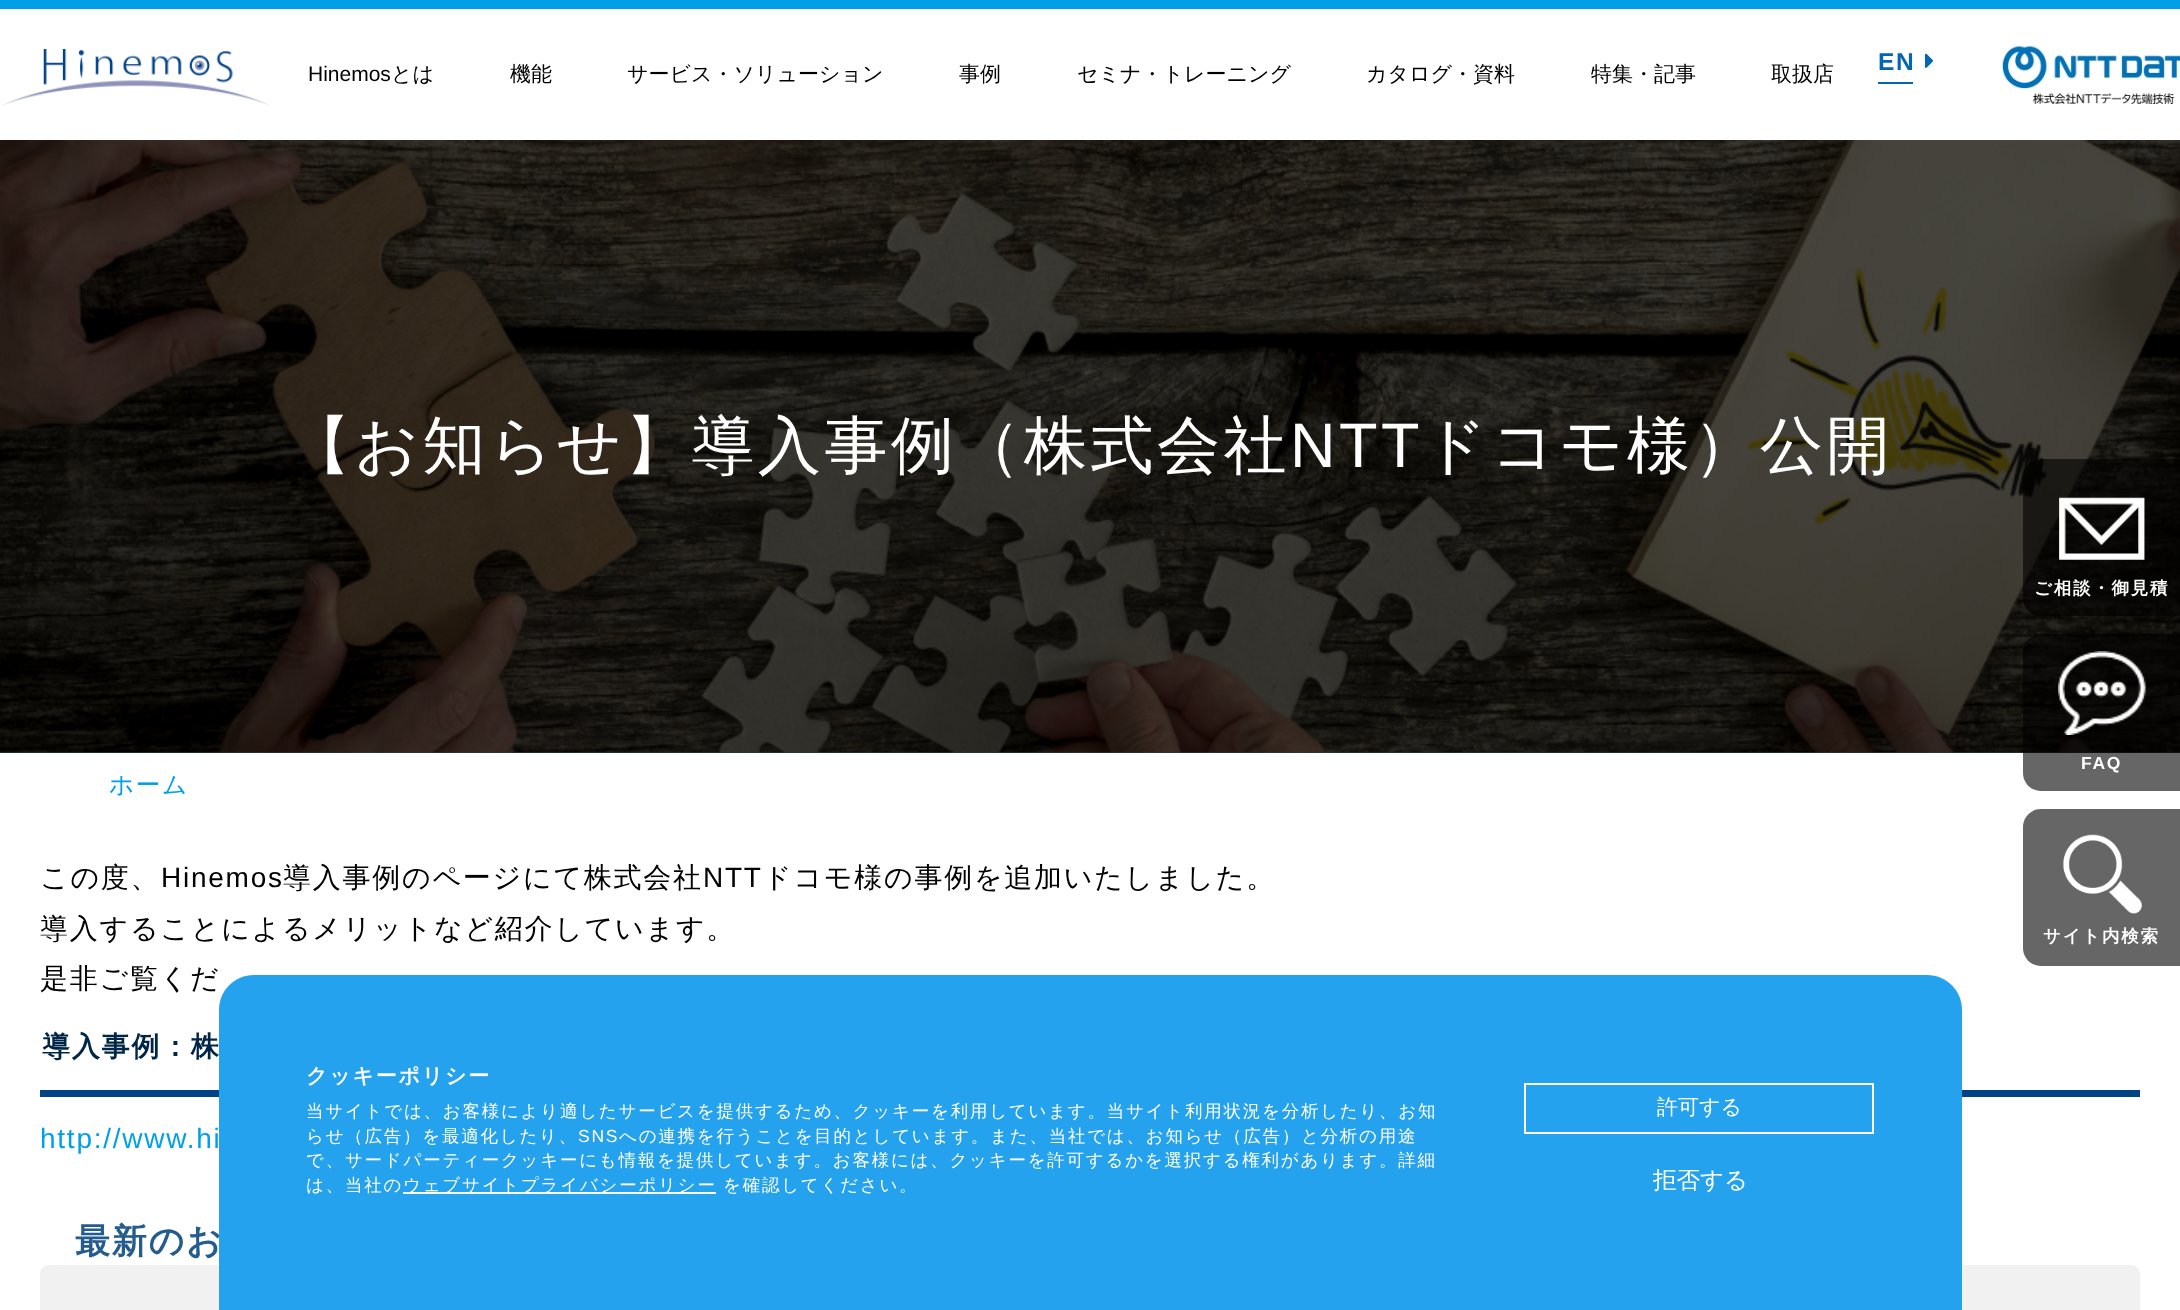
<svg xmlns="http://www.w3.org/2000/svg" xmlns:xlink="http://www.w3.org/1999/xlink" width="2180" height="1310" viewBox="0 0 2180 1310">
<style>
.cls-1{font:21px Liberation Sans;fill:#000000}
.cls-2{font:500 21px WenQuanYi Zen Hei;fill:#000000}
.cls-3{font:bold 24.5px Liberation Sans;letter-spacing:1.75px;fill:#0066b5}
.cls-4{font:500 63px WenQuanYi Zen Hei;letter-spacing:3.5px;fill:#ffffff}
.cls-5{font:63px Liberation Sans;letter-spacing:3.5px;fill:#ffffff}
.cls-6{font:500 24.5px WenQuanYi Zen Hei;letter-spacing:1.75px;fill:#00a0e9}
.cls-7{font:500 28px WenQuanYi Zen Hei;letter-spacing:1.75px;fill:#000000}
.cls-8{font:28px Liberation Sans;letter-spacing:1.75px;fill:#000000}
.cls-9{font:bold 28px WenQuanYi Zen Hei;letter-spacing:1.75px;fill:#002647}
.cls-10{font:28px Liberation Sans;letter-spacing:1.75px;fill:#00a0e9}
.cls-11{font:bold 17.5px WenQuanYi Zen Hei;letter-spacing:1.75px;fill:#ffffff}
.cls-12{font:bold 17.5px Liberation Sans;letter-spacing:1.75px;fill:#ffffff}
.cls-13{font:bold 35px WenQuanYi Zen Hei;letter-spacing:1.75px;fill:#255c8e}
.cls-14{font:bold 21px WenQuanYi Zen Hei;letter-spacing:1.75px;fill:#ffffff}
.cls-15{font:500 17.5px WenQuanYi Zen Hei;letter-spacing:1.75px;fill:#ffffff}
.cls-16{font:17.5px Liberation Sans;letter-spacing:1.75px;fill:#ffffff}
.cls-17{font:500 21px WenQuanYi Zen Hei;fill:#ffffff}
.cls-18{font:500 23.5px WenQuanYi Zen Hei;fill:#ffffff}
</style>
<rect width="100%" height="100%" fill="#ffffff"/>
<rect fill="#00a0e9" x="0" y="0" width="2180" height="9"/>
<image xlink:href="image0.png" x="3" y="49" width="266" height="56"/>
<image xlink:href="image1.png" x="1925" y="53" width="8" height="15"/>
<rect fill="#0066b5" x="1878" y="82" width="35" height="2"/>
<image xlink:href="image2.png" x="2001" y="45" width="179" height="59"/>
<rect fill="#233939" x="0" y="752" width="2180" height="1"/>
<image xlink:href="image3.png" x="0" y="140" width="2180" height="613"/>
<rect fill="#004386" x="40" y="1090" width="2100" height="7"/>
<path fill="#000000" fill-opacity="0.6" d="M2041 459H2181V616H2041C2031 616 2023 608 2023 598V477C2023 467 2031 459 2041 459Z"/>
<image xlink:href="image4.png" x="2059" y="497" width="86" height="63"/>
<path fill="#000000" fill-opacity="0.6" d="M2041 634H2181V791H2041C2031 791 2023 783 2023 773V652C2023 642 2031 634 2041 634Z"/>
<image xlink:href="image5.png" x="2058" y="651" width="88" height="84"/>
<path fill="#666666" d="M2041 809H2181V966H2041C2031 966 2023 958 2023 948V827C2023 817 2031 809 2041 809Z"/>
<image xlink:href="image6.png" x="2063" y="834" width="79" height="80"/>
<rect fill="#f1f1f1" x="40" y="1265" width="2100" height="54" rx="9"/>
<text class="cls-1" x="308" y="81">Hinemos</text>
<text class="cls-2" x="391" y="81">とは</text>
<text class="cls-2" x="510" y="81">機能</text>
<text class="cls-2" x="627" y="81">サービス・ソリューション</text>
<text class="cls-2" x="959" y="81">事例</text>
<text class="cls-2" x="1077" y="81">セミナ・トレーニング</text>
<text class="cls-2" x="1366" y="81">カタログ・資料</text>
<text class="cls-2" x="1591" y="81">特集・記事</text>
<text class="cls-2" x="1771" y="81">取扱店</text>
<text class="cls-3" x="1878" y="70">EN</text>
<text class="cls-4" x="288" y="467">【お知らせ】導入事例（株式会社</text>
<text class="cls-5" x="1290" y="467">NTT</text>
<text class="cls-4" x="1423" y="467">ドコモ様）公開</text>
<text class="cls-6" x="109" y="793">ホーム</text>
<text class="cls-7" x="40" y="887">この度、</text>
<text class="cls-8" x="161" y="887">Hinemos</text>
<text class="cls-7" x="283" y="887">導入事例のページにて株式会社</text>
<text class="cls-8" x="703" y="887">NTT</text>
<text class="cls-7" x="763" y="887">ドコモ様の事例を追加いたしました。</text>
<text class="cls-7"><tspan x="40" y="938">導入することによるメリットなど紹介しています。</tspan><tspan x="40" y="988">是非ご覧くだ</tspan></text>
<text class="cls-9" x="42" y="1056">導入事例：株</text>
<text class="cls-10" x="40" y="1148">http://www.hi</text>
<text class="cls-11" x="2034" y="594">ご相談・御見積</text>
<text class="cls-12" x="2081" y="769">FAQ</text>
<text class="cls-11" x="2043" y="942">サイト内検索</text>
<text class="cls-13" x="75" y="1253">最新のお</text>
<path fill="#25a2ed" d="M254 975H1927C1946.5 975 1962 990.5 1962 1010V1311H219V1010C219 990.5 234.5 975 254 975Z"/>
<text class="cls-14" x="306" y="1083">クッキーポリシー</text>
<text class="cls-15"><tspan x="306" y="1117">当サイトでは、お客様により適したサービスを提供するため、クッキーを利用しています。当サイト利用状況を分析したり、お知</tspan><tspan x="306" y="1142">らせ（広告）を最適化したり、</tspan></text>
<text class="cls-16" x="578" y="1142">SNS</text>
<text class="cls-15" x="619" y="1142">への連携を行うことを目的としています。また、当社では、お知らせ（広告）と分析の用途</text>
<text class="cls-15"><tspan x="306" y="1166">で、サードパーティークッキーにも情報を提供しています。お客様には、クッキーを許可するかを選択する権利があります。詳細</tspan><tspan x="306" y="1191">は、当社の</tspan></text>
<rect fill="#ffffff" x="403" y="1192" width="313" height="2"/>
<text class="cls-15" x="403" y="1191">ウェブサイトプライバシーポリシー</text>
<text class="cls-15" x="723" y="1191">を確認してください。</text>
<rect fill="none" stroke="#ffffff" stroke-width="2" x="1525" y="1084" width="348" height="49"/>
<text class="cls-17" x="1657" y="1114">許可する</text>
<text class="cls-18" x="1653" y="1188">拒否する</text>
</svg>
